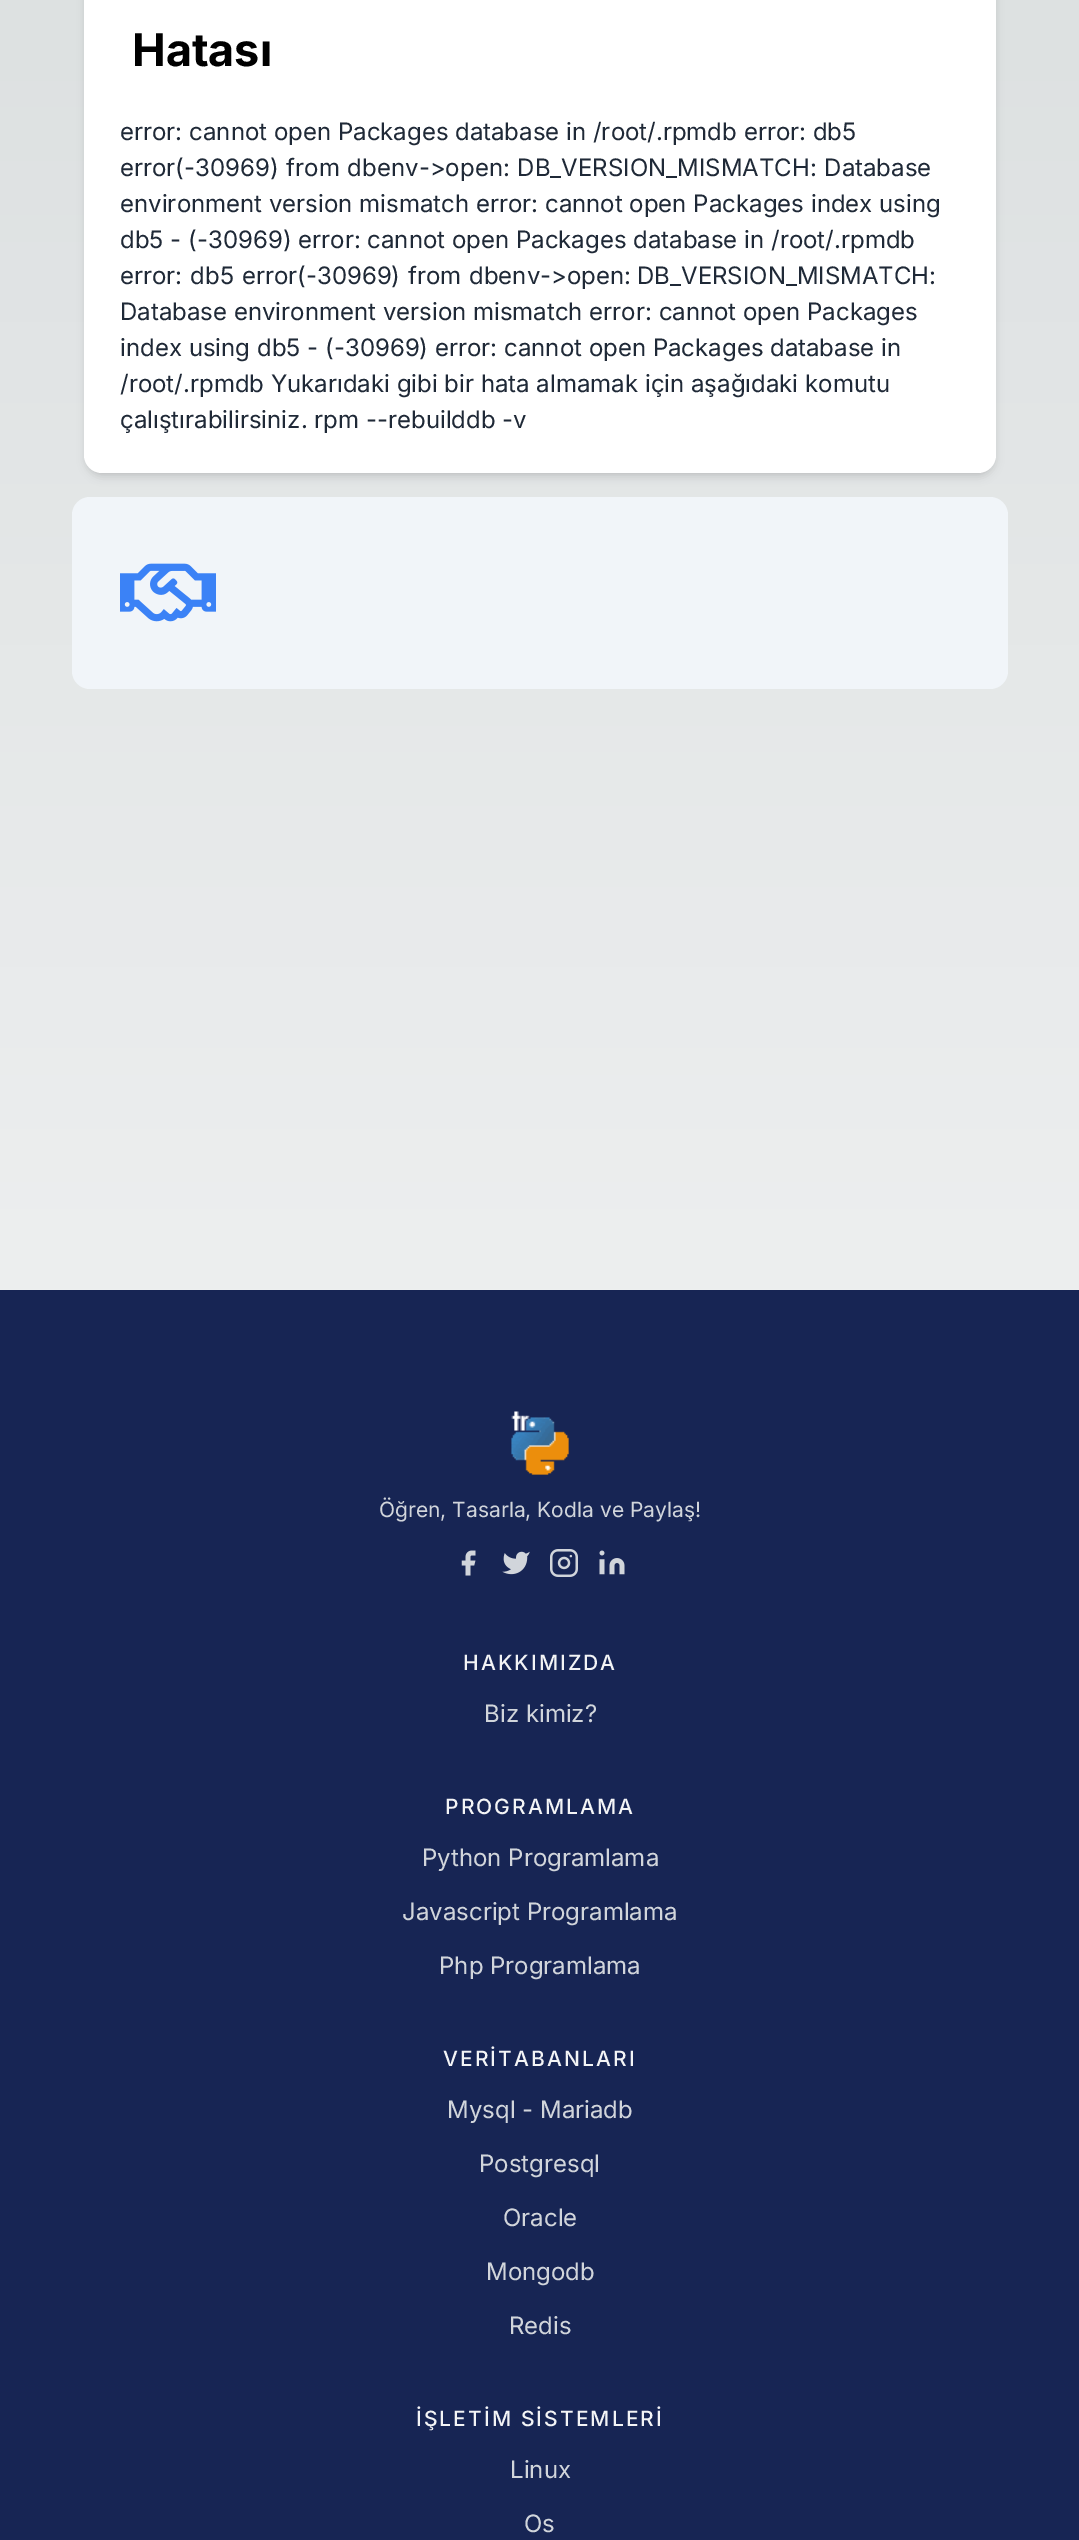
%!PS-Adobe-3.0
%%BoundingBox: 0 0 1079 2540
%%LanguageLevel: 3
%%Pages: 1
%%EndComments
%%BeginProlog
/setink { 3 { 255 div 3 1 roll } repeat setrgbcolor } def
/usefont { [ exch dup neg 0 0 3 -1 roll 0 0 ] selectfont } def
/drawtext { setink usefont moveto show } def
/fillbox { setink rectfill } def
/setalpha { dup .setfillconstantalpha .setstrokeconstantalpha } def
/rrect { 5 dict begin { /r /h /w /y /x } { exch def } forall
  x r add y moveto x w add y 2 copy h add r arct x w add y h add x 1 index r arct
  x y h add x y r arct x y 2 copy exch w add exch r arct closepath end } def
/softshadow { 12 dict begin { /a /b /q /h /w /y /x } { exch def } forall gsave /was 0 def
  9 -2 -9 { dup b mul 4 div /e exch def 1 sub .425 mul 2.718 exch exp 1 add a .99 .min exch div /now exch def
    1 1 now sub 1 was sub div sub setalpha /was now def
    w h .min e 2 mul add 0 gt { x e sub y e sub w e 2 mul add h e 2 mul add
      q e add b .6 mul add w h .min 2 div e add .min 0 .max rrect fill } if } for grestore end } def
/drawimage { 5 dict begin { /h /w /y /x /name } { exch def } forall
  gsave x y translate w h scale
  w h 8 [w 0 0 h 0 0] name (r) file false 3 colorimage grestore end } def
%%EndProlog
%%BeginSetup
<< /PageSize [1079 2540] /PageUsesTransparency true >> setpagedevice
%%EndSetup
%%Page: 1 1
0 .pushpdf14devicefilter
0 2540 translate 1 -1 scale
4 setmiterlimit
0 0 1079 2540 255 255 255 fillbox
gsave 0 0 moveto 1079 0 lineto 1079 1290 lineto 0 1290 lineto closepath clip newpath
<< /ShadingType 2 /ColorSpace /DeviceRGB /Coords [540 -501 540 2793] /Extend [true true] /Function << /FunctionType 2 /Domain [0 1] /C0 [0.843 0.859 0.863] /C1 [1 1 1] /N 1 >> >> shfill grestore
0 0 0 setink
87 -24 906 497 15 3 0.1 softshadow
86 -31 909 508 17 4.5 0.1 softshadow
255 255 255 setink
84 -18 912 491 18 rrect fill
(Hatası) 132 66 /Inter-Bold 45 0 0 0 drawtext
(error: cannot open Packages database in /root/.rpmdb error: db5) 120 140 /Inter-Regular 24 31 41 55 drawtext
120 176 moveto 1 0 32 (error\(-30969\) from dbenv->open: DB_VERSION_MISMATCH: Database) widthshow
(environment version mismatch error: cannot open Packages index using) 120 212 /Inter-Regular 24 31 41 55 drawtext
(db5 - \(-30969\) error: cannot open Packages database in /root/.rpmdb) 120 248 /Inter-Regular 24 31 41 55 drawtext
120 284 moveto 1 0 32 (error: db5 error\(-30969\) from dbenv->open:) widthshow
637 284 moveto 1 0 32 (DB_VERSION_MISMATCH:) widthshow
(Database environment version mismatch error: cannot open Packages) 120 320 /Inter-Regular 24 31 41 55 drawtext
(index using db5 - \(-30969\) error: cannot open Packages database in) 120 356 /Inter-Regular 24 31 41 55 drawtext
(/root/.rpmdb Yukarıdaki gibi bir hata almamak için aşağıdaki komutu) 120 392 /Inter-Regular 24 31 41 55 drawtext
(çalıştırabilirsiniz. rpm --rebuilddb -v) 120 428 /Inter-Regular 24 31 41 55 drawtext
241 245 249 setink
72 497 936 192 18 rrect fill
(assets/img1.rgb) 120 563 96 59 drawimage
0 1290 1079 1250 23 37 84 fillbox
(assets/img2.rgb) 511 1411 58 64 drawimage
(Öğren, Tasarla, Kodla ve Paylaş!) 379 1517 /Inter-Regular 21 209 213 219 drawtext
(assets/img3.rgb) 461 1550 15 26 drawimage
(assets/img4.rgb) 502 1551 28 24 drawimage
(assets/img5.rgb) 550 1549 28 28 drawimage
(assets/img6.rgb) 599 1550 26 25 drawimage
/Inter-Medium 21 usefont
243 244 246 setink
463 1670 moveto 2.1 0 (HAKKIMIZDA) ashow
(Biz kimiz?) 484 1722 /Inter-Regular 24 209 213 219 drawtext
/Inter-Medium 21 usefont
243 244 246 setink
445 1814 moveto 2.1 0 (PROGRAMLAMA) ashow
(Python Programlama) 422 1866 /Inter-Regular 24 209 213 219 drawtext
(Javascript Programlama) 402 1920 /Inter-Regular 24 209 213 219 drawtext
(Php Programlama) 439 1974 /Inter-Regular 24 209 213 219 drawtext
/Inter-Medium 21 usefont
243 244 246 setink
443 2066 moveto 2.1 0 (VERİTABANLARI) ashow
(Mysql - Mariadb) 447 2118 /Inter-Regular 24 209 213 219 drawtext
(Postgresql) 479 2172 /Inter-Regular 24 209 213 219 drawtext
(Oracle) 503 2226 /Inter-Regular 24 209 213 219 drawtext
(Mongodb) 486 2280 /Inter-Regular 24 209 213 219 drawtext
(Redis) 509 2334 /Inter-Regular 24 209 213 219 drawtext
/Inter-Medium 21 usefont
243 244 246 setink
416 2426 moveto 2.1 0 (İŞLETİM SİSTEMLERİ) ashow
(Linux) 510 2478 /Inter-Regular 24 209 213 219 drawtext
(Os) 524 2532 /Inter-Regular 24 209 213 219 drawtext
.poppdf14devicefilter showpage
%%EOF
